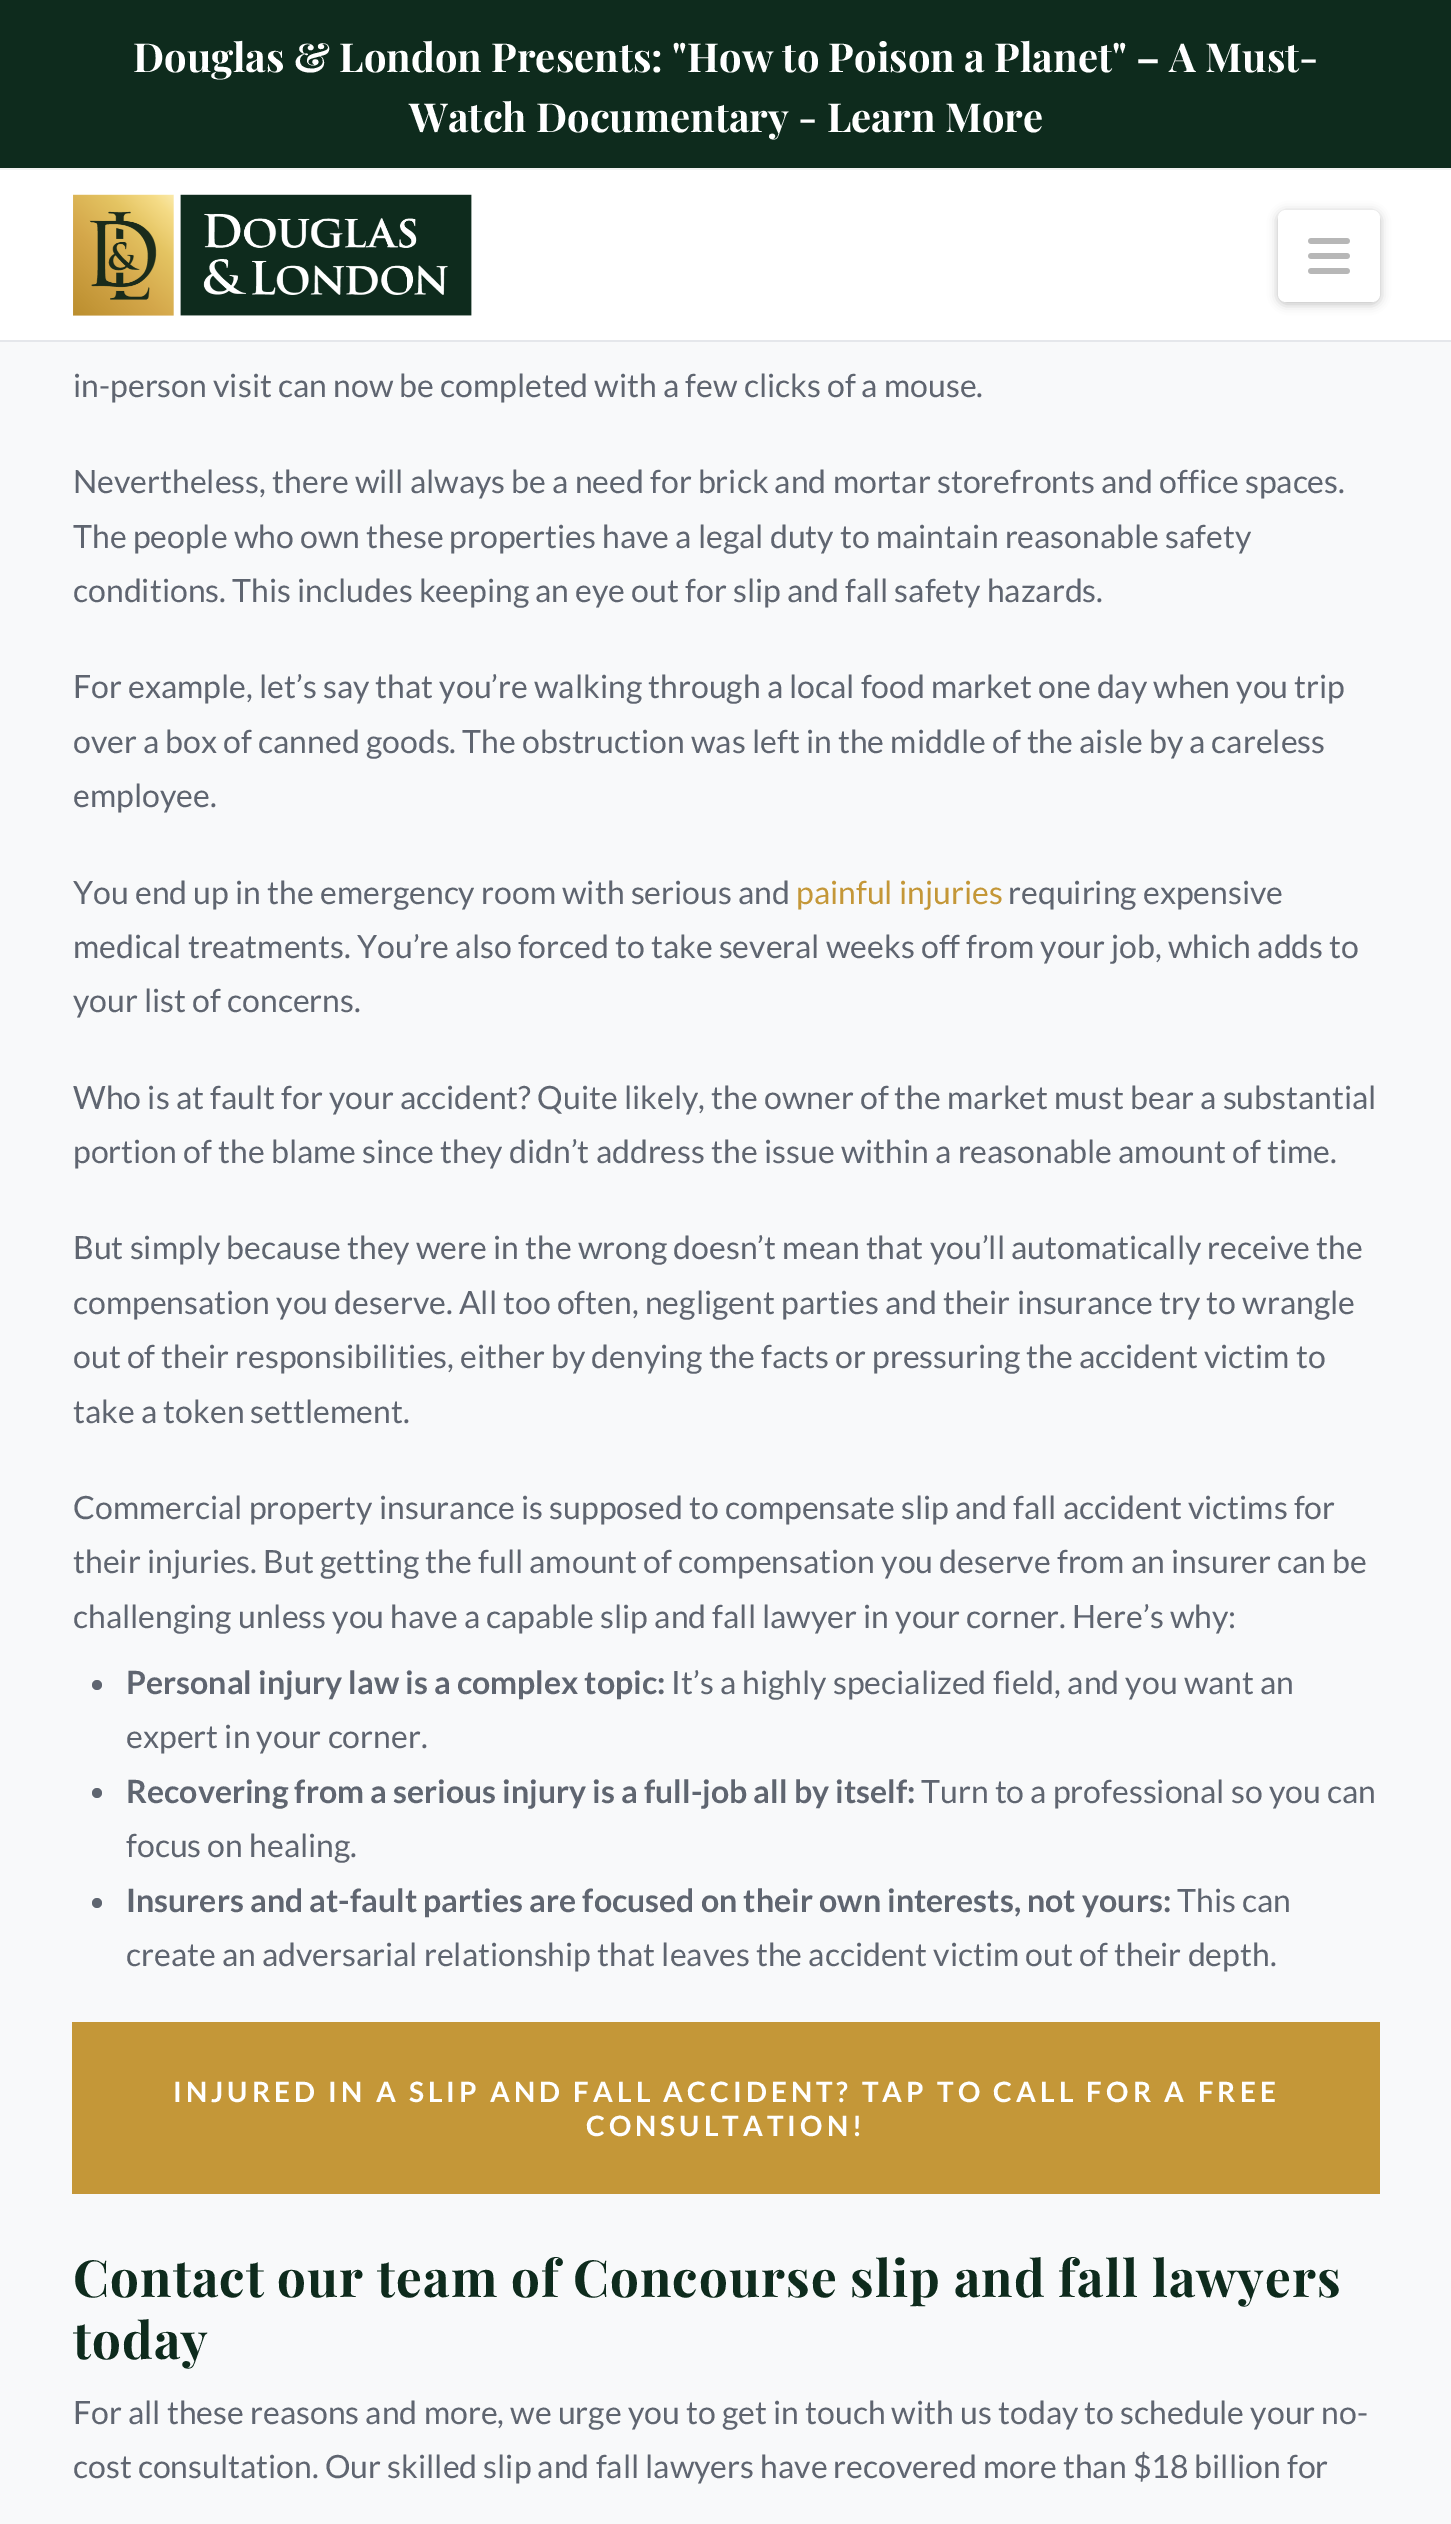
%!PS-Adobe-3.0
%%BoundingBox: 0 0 1451 2524
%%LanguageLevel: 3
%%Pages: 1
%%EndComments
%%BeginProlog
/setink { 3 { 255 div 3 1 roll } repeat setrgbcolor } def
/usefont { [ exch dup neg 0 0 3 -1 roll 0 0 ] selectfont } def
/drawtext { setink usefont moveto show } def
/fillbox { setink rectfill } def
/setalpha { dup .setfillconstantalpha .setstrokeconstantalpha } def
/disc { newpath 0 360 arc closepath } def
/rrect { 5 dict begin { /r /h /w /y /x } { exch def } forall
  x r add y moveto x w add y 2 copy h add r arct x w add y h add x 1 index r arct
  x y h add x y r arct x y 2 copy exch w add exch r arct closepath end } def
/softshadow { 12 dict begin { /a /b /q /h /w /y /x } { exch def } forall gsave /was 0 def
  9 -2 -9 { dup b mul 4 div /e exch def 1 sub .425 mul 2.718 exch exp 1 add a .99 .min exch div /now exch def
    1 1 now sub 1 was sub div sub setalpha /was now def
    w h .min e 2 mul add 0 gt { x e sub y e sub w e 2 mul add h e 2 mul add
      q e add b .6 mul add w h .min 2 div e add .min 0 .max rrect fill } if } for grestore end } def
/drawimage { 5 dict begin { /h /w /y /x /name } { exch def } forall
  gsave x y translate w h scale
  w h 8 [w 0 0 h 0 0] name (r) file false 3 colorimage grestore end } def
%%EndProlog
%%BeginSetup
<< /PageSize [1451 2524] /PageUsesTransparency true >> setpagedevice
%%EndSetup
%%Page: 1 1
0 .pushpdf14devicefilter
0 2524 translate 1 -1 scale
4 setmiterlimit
0 0 1451 2524 248 249 250 fillbox
0 0 1451 168 14 43 29 fillbox
0 168 1451 2 242 242 242 fillbox
(Douglas & London Presents: "How to Poison a Planet" – A Must-) 133 72 /PlayfairDisplay-Bold 40 255 255 255 drawtext
(Watch Documentary - Learn More) 409 132 /PlayfairDisplay-Bold 40 255 255 255 drawtext
0 170 1451 170 255 255 255 fillbox
0 340 1451 2 229 231 235 fillbox
(assets/img1.rgb) 73 194 399 122 drawimage
0 0 0 setink
1278 212 102 92 8 5 0.25 softshadow
255 255 255 setink
1278 210 102 92 8 rrect fill
(assets/img2.rgb) 1308 238 42 36 drawimage
(in-person visit can now be completed with a few clicks of a mouse.) 73 397 /Lato-Regular 32 95 101 112 drawtext
(Nevertheless, there will always be a need for brick and mortar storefronts and office spaces.) 73 493 /Lato-Regular 32 95 101 112 drawtext
(The people who own these properties have a legal duty to maintain reasonable safety) 73 548 /Lato-Regular 32 95 101 112 drawtext
(conditions. This includes keeping an eye out for slip and fall safety hazards.) 73 602 /Lato-Regular 32 95 101 112 drawtext
(For example, let’s say that you’re walking through a local food market one day when you trip) 73 698 /Lato-Regular 32 95 101 112 drawtext
(over a box of canned goods. The obstruction was left in the middle of the aisle by a careless) 73 753 /Lato-Regular 32 95 101 112 drawtext
(employee.) 73 807 /Lato-Regular 32 95 101 112 drawtext
(You end up in the emergency room with serious and) 73 904 /Lato-Regular 32 95 101 112 drawtext
(painful injuries) 796 904 /Lato-Regular 32 196 151 56 drawtext
(requiring expensive) 1008 904 /Lato-Regular 32 95 101 112 drawtext
(medical treatments. You’re also forced to take several weeks off from your job, which adds to) 73 958 /Lato-Regular 32 95 101 112 drawtext
(your list of concerns.) 73 1012 /Lato-Regular 32 95 101 112 drawtext
(Who is at fault for your accident? Quite likely, the owner of the market must bear a substantial) 73 1109 /Lato-Regular 32 95 101 112 drawtext
(portion of the blame since they didn’t address the issue within a reasonable amount of time.) 73 1163 /Lato-Regular 32 95 101 112 drawtext
(But simply because they were in the wrong doesn’t mean that you’ll automatically receive the) 73 1259 /Lato-Regular 32 95 101 112 drawtext
(compensation you deserve. All too often, negligent parties and their insurance try to wrangle) 73 1314 /Lato-Regular 32 95 101 112 drawtext
(out of their responsibilities, either by denying the facts or pressuring the accident victim to) 73 1368 /Lato-Regular 32 95 101 112 drawtext
(take a token settlement.) 73 1423 /Lato-Regular 32 95 101 112 drawtext
(Commercial property insurance is supposed to compensate slip and fall accident victims for) 73 1519 /Lato-Regular 32 95 101 112 drawtext
(their injuries. But getting the full amount of compensation you deserve from an insurer can be) 73 1573 /Lato-Regular 32 95 101 112 drawtext
(challenging unless you have a capable slip and fall lawyer in your corner. Here’s why:) 73 1628 /Lato-Regular 32 95 101 112 drawtext
97 1685 5 disc fill
(Personal injury law is a complex topic:) 126 1694 /Lato-Bold 32 95 101 112 drawtext
(It’s a highly specialized field, and you want an) 671 1694 /Lato-Regular 32 95 101 112 drawtext
(expert in your corner.) 126 1748 /Lato-Regular 32 95 101 112 drawtext
97 1793 5 disc fill
(Recovering from a serious injury is a full-job all by itself:) 126 1803 /Lato-Bold 32 95 101 112 drawtext
(Turn to a professional so you can) 921 1803 /Lato-Regular 32 95 101 112 drawtext
(focus on healing.) 126 1857 /Lato-Regular 32 95 101 112 drawtext
97 1903 5 disc fill
(Insurers and at-fault parties are focused on their own interests, not yours:) 126 1912 /Lato-Bold 32 95 101 112 drawtext
(This can) 1177 1912 /Lato-Regular 32 95 101 112 drawtext
(create an adversarial relationship that leaves the accident victim out of their depth.) 126 1966 /Lato-Regular 32 95 101 112 drawtext
72 2022 1308 172 196 151 56 fillbox
/Lato-Bold 28 usefont
255 255 255 setink
173 2102 moveto 4 0 (INJURED IN A SLIP AND FALL ACCIDENT? TAP TO CALL FOR A FREE) ashow
586 2136 moveto 4 0 (CONSULTATION!) ashow
/PlayfairDisplay-Bold 51.2 usefont
14 43 29 setink
73 2297 moveto 1.02 0 (Contact our team of Concourse slip and fall lawyers) ashow
73 2359 moveto 1.02 0 (today) ashow
(For all these reasons and more, we urge you to get in touch with us today to schedule your no-) 73 2424 /Lato-Regular 32 95 101 112 drawtext
(cost consultation. Our skilled slip and fall lawyers have recovered more than $18 billion for) 73 2478 /Lato-Regular 32 95 101 112 drawtext
.poppdf14devicefilter showpage
%%EOF
